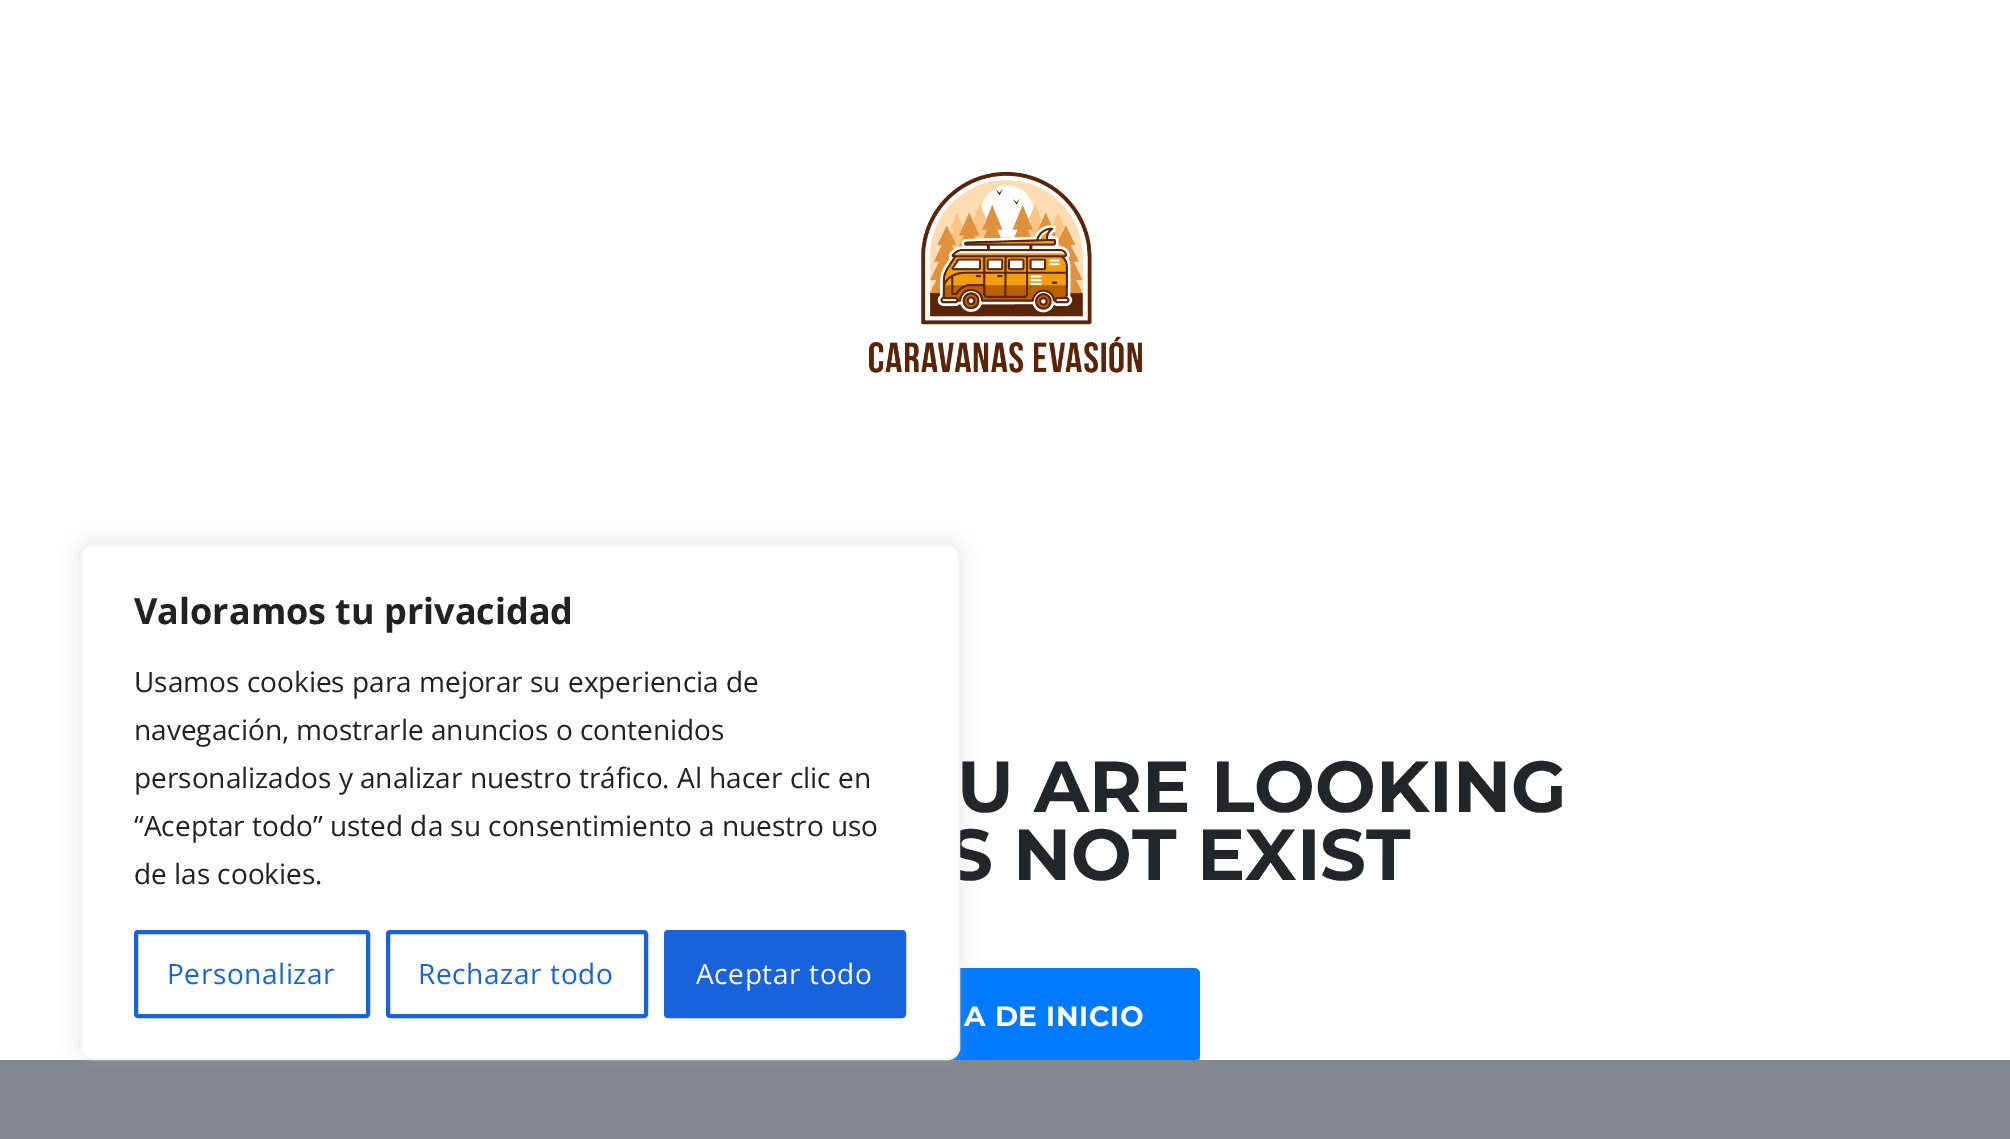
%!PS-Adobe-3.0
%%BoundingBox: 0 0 2010 1139
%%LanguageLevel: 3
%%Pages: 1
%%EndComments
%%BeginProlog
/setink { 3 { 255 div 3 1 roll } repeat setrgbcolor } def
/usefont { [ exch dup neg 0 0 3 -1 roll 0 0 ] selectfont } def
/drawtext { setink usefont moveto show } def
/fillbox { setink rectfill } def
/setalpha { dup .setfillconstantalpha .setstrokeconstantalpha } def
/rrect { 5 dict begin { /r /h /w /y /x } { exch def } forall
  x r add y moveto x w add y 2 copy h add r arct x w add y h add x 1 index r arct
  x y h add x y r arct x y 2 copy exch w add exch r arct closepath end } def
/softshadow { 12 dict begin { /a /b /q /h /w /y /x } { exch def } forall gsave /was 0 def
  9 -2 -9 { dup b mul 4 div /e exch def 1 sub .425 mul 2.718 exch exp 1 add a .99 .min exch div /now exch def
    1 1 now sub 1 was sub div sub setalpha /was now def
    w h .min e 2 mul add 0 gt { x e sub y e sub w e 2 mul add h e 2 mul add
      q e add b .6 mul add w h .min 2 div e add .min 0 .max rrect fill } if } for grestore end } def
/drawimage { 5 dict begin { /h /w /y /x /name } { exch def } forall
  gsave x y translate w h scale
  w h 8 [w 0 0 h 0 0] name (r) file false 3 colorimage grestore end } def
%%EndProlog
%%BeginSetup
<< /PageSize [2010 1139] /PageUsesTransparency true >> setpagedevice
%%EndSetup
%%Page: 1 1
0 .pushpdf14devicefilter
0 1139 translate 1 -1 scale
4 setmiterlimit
0 0 2010 1139 255 255 255 fillbox
64 155 255 setink
810 1054 moveto 810 1058 810 1063 815 1064 curveto 1195 1064 lineto 1200 1063 1200 1058 1200 1054 curveto 1200 1057 1197 1060 1194 1060 curveto 816 1060 lineto 813 1060 810 1057 810 1054 curveto closepath fill
0 122 255 setink
810 968 390 92 6 rrect fill
0 1060 2010 79 131 136 142 fillbox
172 171 171 setink
80 542 880 516 12 10 0.3 softshadow
(S NOT EXIST) 947 880 /Montserrat-Bold 72 35 38 40 drawtext
255 255 255 setink
81 545 878 514 11 rrect gsave fill grestore
244 244 244 setink
2 setlinewidth
stroke
(Valoramos tu privacidad) 134 624 /OpenSans-Bold 36 33 33 33 drawtext
(Usamos cookies para mejorar su experiencia de) 134 692 /OpenSans-Regular 28 33 33 33 drawtext
(navegación, mostrarle anuncios o contenidos) 134 740 /OpenSans-Regular 28 33 33 33 drawtext
(personalizados y analizar nuestro tráfico. Al hacer clic en) 134 788 /OpenSans-Regular 28 33 33 33 drawtext
(“Aceptar todo” usted da su consentimiento a nuestro uso) 134 836 /OpenSans-Regular 28 33 33 33 drawtext
(de las cookies.) 134 884 /OpenSans-Regular 28 33 33 33 drawtext
24 99 220 setink
4 setlinewidth
136 932 232 84 2 rrect stroke
167 984 moveto 0.6 0 (Personalizar) ashow
388 932 258 84 2 rrect stroke
418 984 moveto 0.6 0 (Rechazar todo) ashow
666 932 238 84 2 rrect gsave fill grestore
stroke
255 255 255 setink
696 984 moveto 0.6 0 (Aceptar todo) ashow
(assets/img1.rgb) 869 172 274 201 drawimage
(U ARE LOOKING) 957 812 /Montserrat-Bold 72 35 38 40 drawtext
/Montserrat-Bold 28 usefont
255 255 255 setink
964 1026 moveto 0.6 0 (A DE INICIO) ashow
.poppdf14devicefilter showpage
%%EOF
